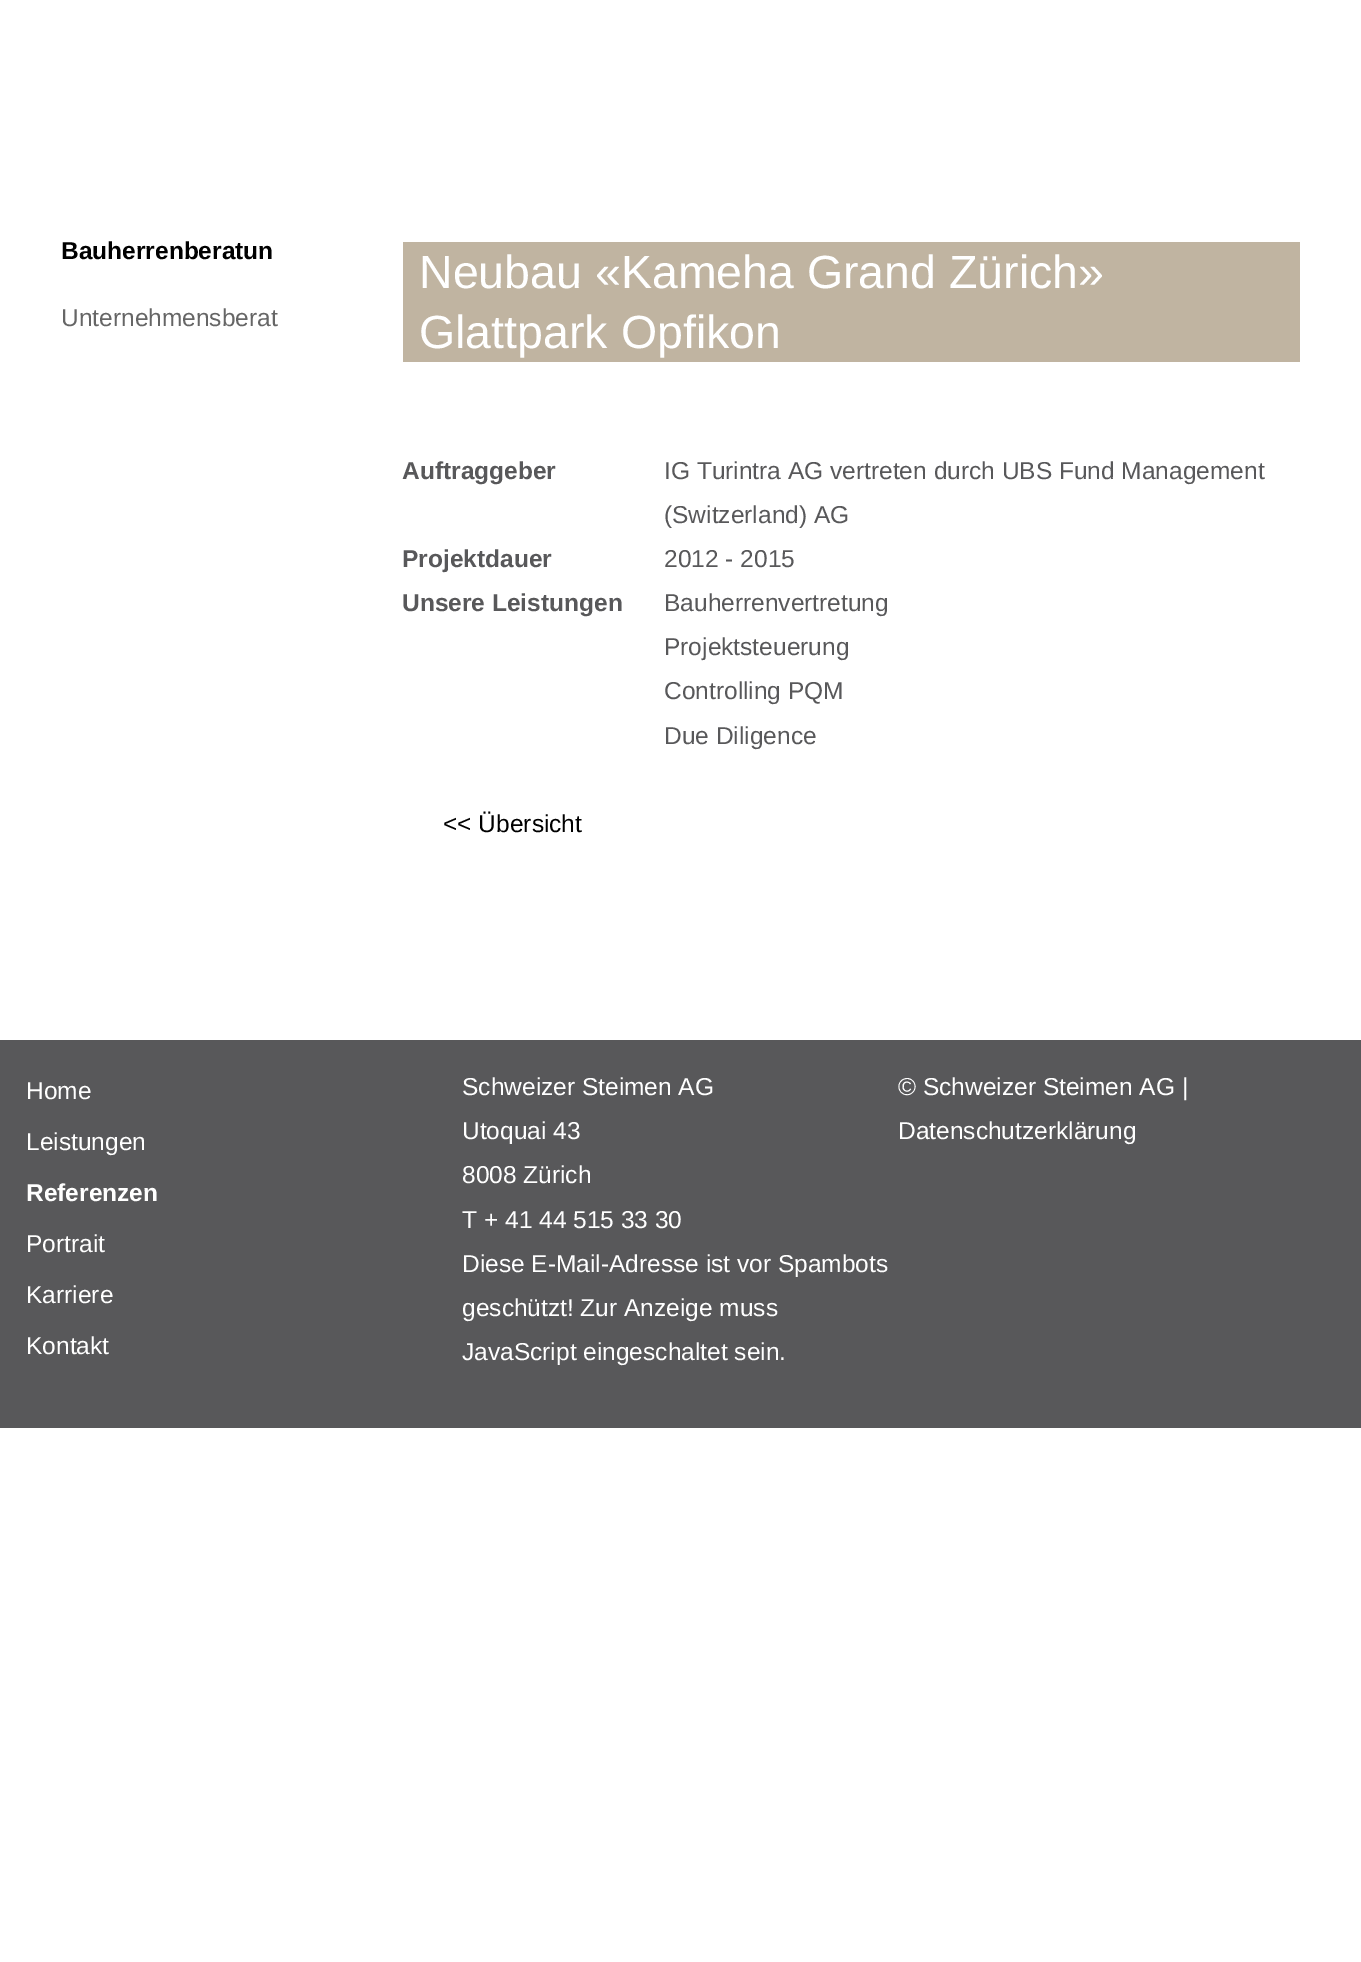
%!PS-Adobe-3.0
%%BoundingBox: 0 0 1361 1962
%%LanguageLevel: 3
%%Pages: 1
%%EndComments
%%BeginProlog
/setink { 3 { 255 div 3 1 roll } repeat setrgbcolor } def
/usefont { [ exch dup neg 0 0 3 -1 roll 0 0 ] selectfont } def
/drawtext { setink usefont moveto show } def
/fillbox { setink rectfill } def
%%EndProlog
%%BeginSetup
<< /PageSize [1361 1962] >> setpagedevice
%%EndSetup
%%Page: 1 1
0 1962 translate 1 -1 scale
4 setmiterlimit
0 0 1361 1962 255 255 255 fillbox
(Bauherrenberatun) 61 259 /LiberationSans-Bold 24.5 0 0 0 drawtext
(Unternehmensberat) 61 326 /LiberationSans-Regular 24.5 102 102 102 drawtext
403 242 897 120 192 180 161 fillbox
(Neubau «Kameha Grand Zürich») 419 288 /LiberationSans-Regular 46.5 255 255 255 drawtext
(Glattpark Opfikon) 419 348 /LiberationSans-Regular 46.5 255 255 255 drawtext
(Auftraggeber) 402 479 /LiberationSans-Bold 24.5 88 88 90 drawtext
(IG Turintra AG vertreten durch UBS Fund Management) 664 479 /LiberationSans-Regular 24.5 88 88 90 drawtext
(\(Switzerland\) AG) 664 523 /LiberationSans-Regular 24.5 88 88 90 drawtext
(Projektdauer) 402 567 /LiberationSans-Bold 24.5 88 88 90 drawtext
(2012 - 2015) 664 567 /LiberationSans-Regular 24.5 88 88 90 drawtext
(Unsere Leistungen) 402 611 /LiberationSans-Bold 24.5 88 88 90 drawtext
(Bauherrenvertretung) 664 611 /LiberationSans-Regular 24.5 88 88 90 drawtext
(Projektsteuerung) 664 655 /LiberationSans-Regular 24.5 88 88 90 drawtext
(Controlling PQM) 664 699 /LiberationSans-Regular 24.5 88 88 90 drawtext
(Due Diligence) 664 744 /LiberationSans-Regular 24.5 88 88 90 drawtext
(<< Übersicht) 443 832 /LiberationSans-Regular 24.5 0 0 0 drawtext
0 1040 1361 388 88 88 90 fillbox
(Home) 26 1099 /LiberationSans-Regular 24.5 255 255 255 drawtext
(Leistungen) 26 1150 /LiberationSans-Regular 24.5 255 255 255 drawtext
(Referenzen) 26 1201 /LiberationSans-Bold 24.5 255 255 255 drawtext
(Portrait) 26 1252 /LiberationSans-Regular 24.5 255 255 255 drawtext
(Karriere) 26 1303 /LiberationSans-Regular 24.5 255 255 255 drawtext
(Kontakt) 26 1354 /LiberationSans-Regular 24.5 255 255 255 drawtext
(Schweizer Steimen AG) 462 1095 /LiberationSans-Regular 24.5 255 255 255 drawtext
(Utoquai 43) 462 1139 /LiberationSans-Regular 24.5 255 255 255 drawtext
(8008 Zürich) 462 1183 /LiberationSans-Regular 24.5 255 255 255 drawtext
(T + 41 44 515 33 30) 462 1228 /LiberationSans-Regular 24.5 255 255 255 drawtext
(Diese E-Mail-Adresse ist vor Spambots) 462 1272 /LiberationSans-Regular 24.5 255 255 255 drawtext
(geschützt! Zur Anzeige muss) 462 1316 /LiberationSans-Regular 24.5 255 255 255 drawtext
(JavaScript eingeschaltet sein.) 462 1360 /LiberationSans-Regular 24.5 255 255 255 drawtext
(© Schweizer Steimen AG |) 898 1095 /LiberationSans-Regular 24.5 255 255 255 drawtext
(Datenschutzerklärung) 898 1139 /LiberationSans-Regular 24.5 255 255 255 drawtext
showpage
%%EOF
